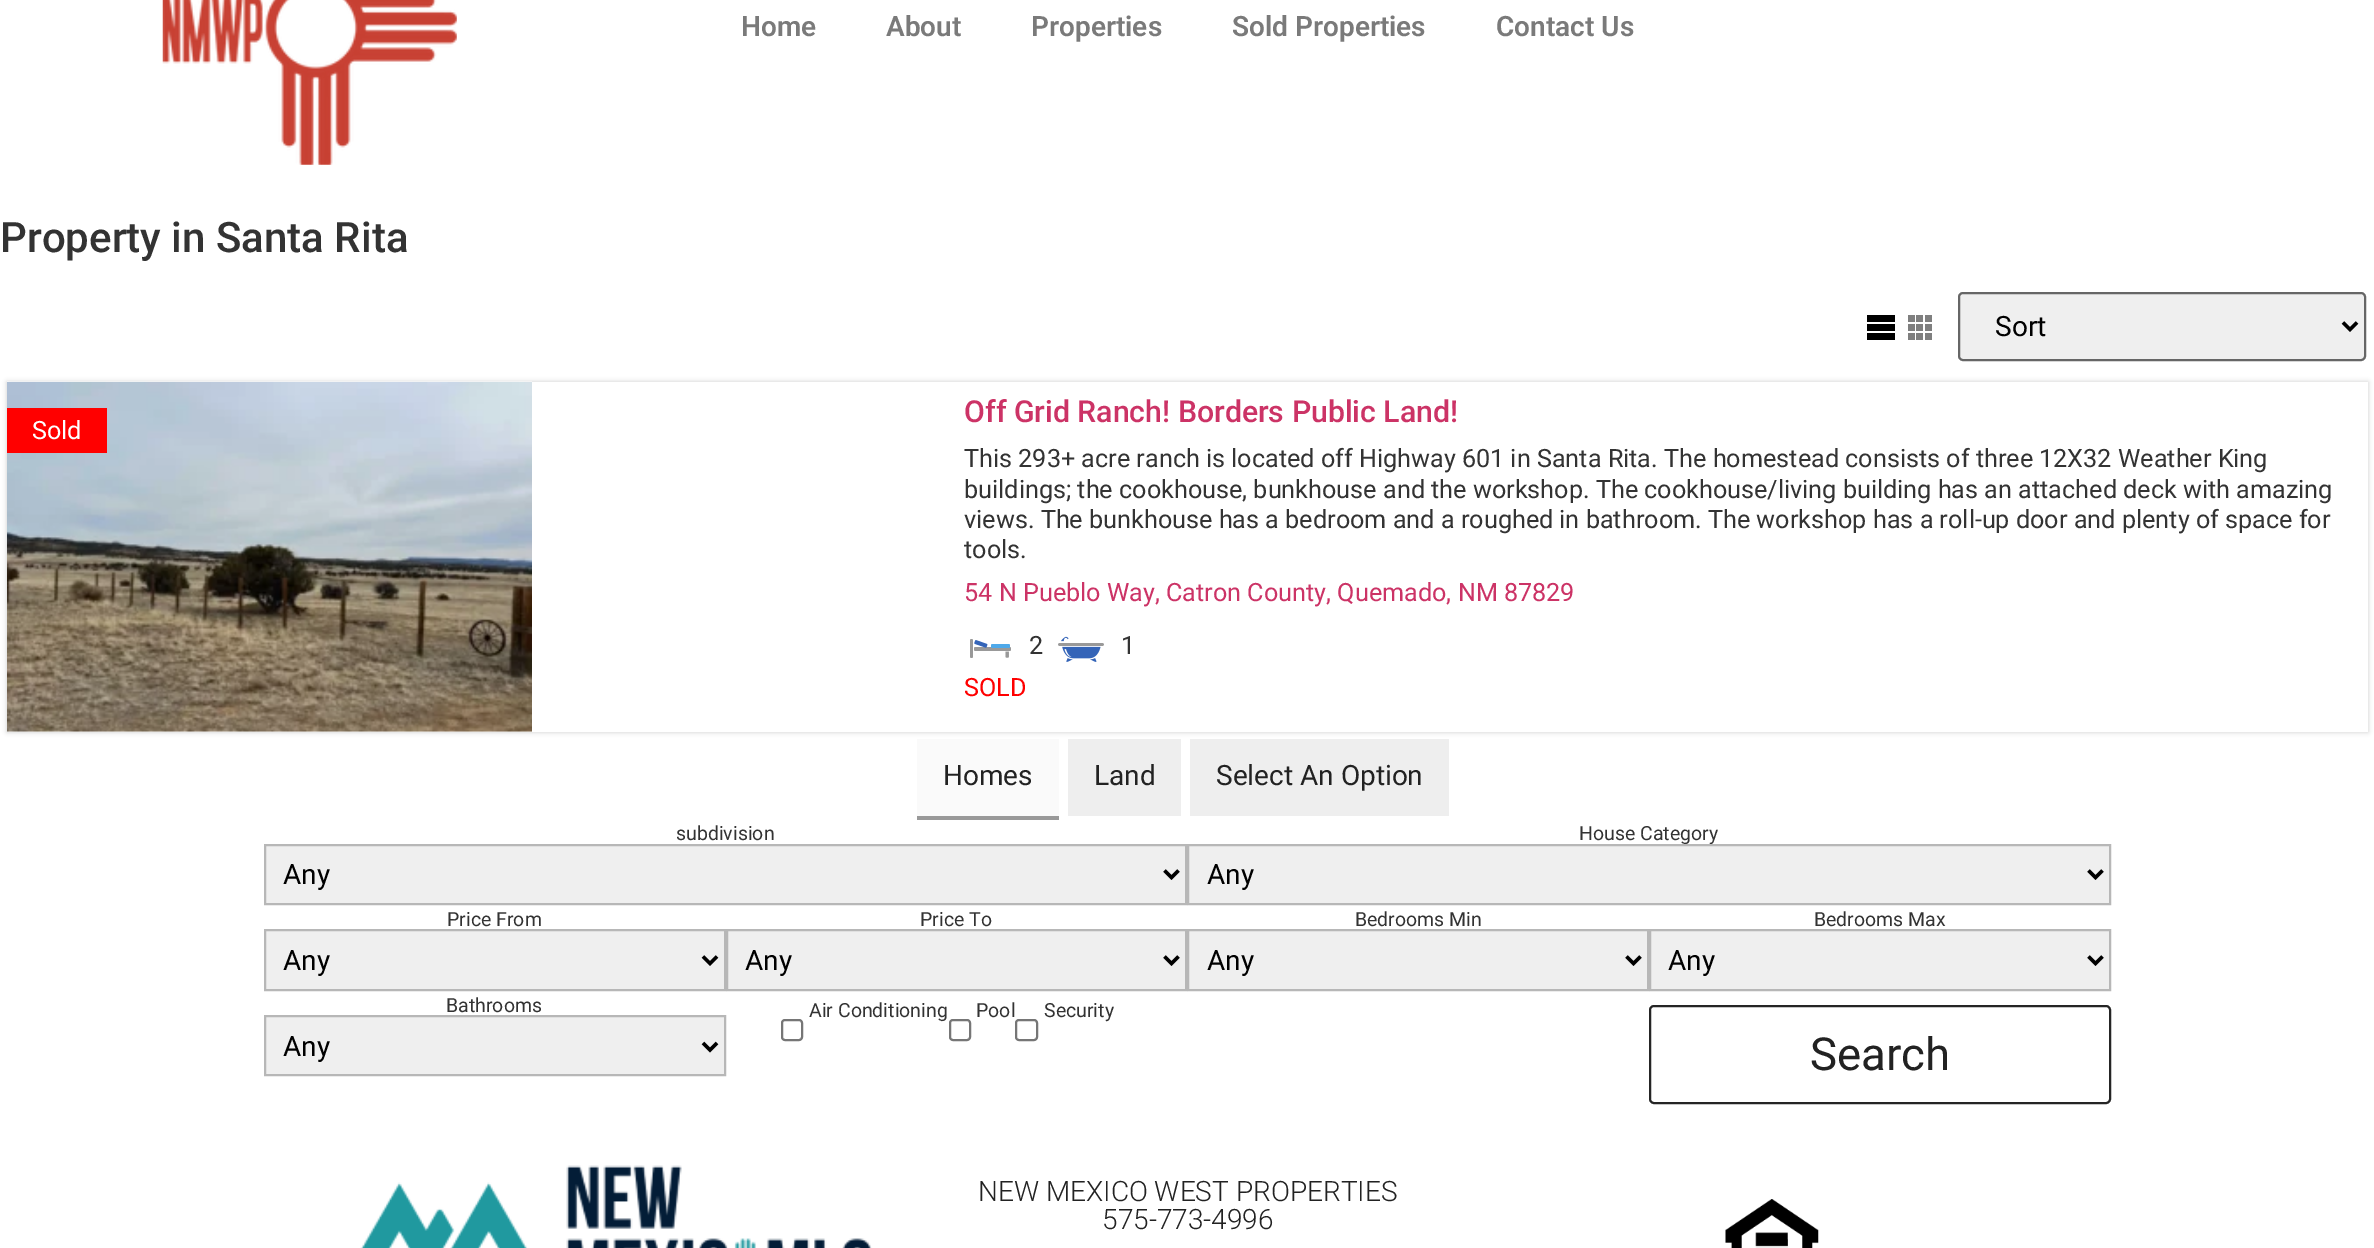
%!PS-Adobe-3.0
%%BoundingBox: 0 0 2374 1248
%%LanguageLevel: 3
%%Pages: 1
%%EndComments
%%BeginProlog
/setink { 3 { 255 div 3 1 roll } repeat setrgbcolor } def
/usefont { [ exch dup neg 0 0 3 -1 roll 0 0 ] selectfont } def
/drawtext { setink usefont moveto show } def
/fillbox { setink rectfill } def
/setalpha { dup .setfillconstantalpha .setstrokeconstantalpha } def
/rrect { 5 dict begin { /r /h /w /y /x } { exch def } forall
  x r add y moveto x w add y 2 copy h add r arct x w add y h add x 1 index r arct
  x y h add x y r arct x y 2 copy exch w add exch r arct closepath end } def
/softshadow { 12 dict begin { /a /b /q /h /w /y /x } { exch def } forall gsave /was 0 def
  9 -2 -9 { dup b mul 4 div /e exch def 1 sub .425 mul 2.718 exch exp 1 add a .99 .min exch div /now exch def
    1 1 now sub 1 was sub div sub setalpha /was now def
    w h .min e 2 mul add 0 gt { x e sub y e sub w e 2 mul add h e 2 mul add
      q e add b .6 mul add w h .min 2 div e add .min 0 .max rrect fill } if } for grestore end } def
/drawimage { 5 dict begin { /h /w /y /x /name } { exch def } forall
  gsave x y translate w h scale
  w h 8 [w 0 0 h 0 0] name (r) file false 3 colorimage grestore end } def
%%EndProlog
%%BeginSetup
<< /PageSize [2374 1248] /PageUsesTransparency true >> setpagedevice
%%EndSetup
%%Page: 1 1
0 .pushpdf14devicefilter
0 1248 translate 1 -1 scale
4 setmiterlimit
0 0 2374 1248 255 255 255 fillbox
(assets/img1.rgb) 162 0 295 165 drawimage
(Home) 741 36 /Roboto-SemiBold 28 122 122 122 drawtext
(About) 886 36 /Roboto-SemiBold 28 122 122 122 drawtext
(Properties) 1031 36 /Roboto-SemiBold 28 122 122 122 drawtext
(Sold Properties) 1232 36 /Roboto-SemiBold 28 122 122 122 drawtext
(Contact Us) 1496 36 /Roboto-SemiBold 28 122 122 122 drawtext
(Property in Santa Rita) 0 252 /Roboto-Medium 42 51 51 51 drawtext
(assets/img2.rgb) 1867 315 28 25 drawimage
(assets/img3.rgb) 1908 315 24 25 drawimage
239 239 239 setink
1959 293 406 67 4 rrect gsave fill grestore
102 102 102 setink
2 setlinewidth
stroke
0 0 0 setink
3.5 setlinewidth
2343 322.5 moveto 2350 329.5 lineto 2357 322.5 lineto stroke
(Sort) 1995 336 /Roboto-Regular 28 0 0 0 drawtext
917 739 142 77 250 250 250 fillbox
1068 739 113 77 238 238 238 fillbox
1190 739 259 77 238 238 238 fillbox
204 204 204 setink
7 382 2361 350 0 2.5 1 softshadow
7 382 2361 350 255 255 255 fillbox
(assets/img4.rgb) 7 381 525 351 drawimage
7 408 100 45 255 0 0 fillbox
(Sold) 32 439 /Roboto-Regular 25.2 255 255 255 drawtext
(Off Grid Ranch! Borders Public Land!) 964 422 /Roboto-Medium 30.25 204 51 102 drawtext
(This 293+ acre ranch is located off Highway 601 in Santa Rita. The homestead consists of three 12X32 Weather King) 964 467 /Roboto-Regular 25.2 51 51 51 drawtext
(buildings; the cookhouse, bunkhouse and the workshop. The cookhouse/living building has an attached deck with amazing) 964 498 /Roboto-Regular 25.2 51 51 51 drawtext
(views. The bunkhouse has a bedroom and a roughed in bathroom. The workshop has a roll-up door and plenty of space for) 964 528 /Roboto-Regular 25.2 51 51 51 drawtext
(tools.) 964 558 /Roboto-Regular 25.2 51 51 51 drawtext
(54 N Pueblo Way, Catron County, Quemado, NM 87829) 964 601 /Roboto-Regular 25.2 204 51 102 drawtext
(assets/img5.rgb) 970 639 41 19 drawimage
(2) 1029 654 /Roboto-Regular 25.2 51 51 51 drawtext
(assets/img6.rgb) 1058 636 46 26 drawimage
(1) 1121 654 /Roboto-Regular 25.2 51 51 51 drawtext
(SOLD) 964 696 /Roboto-Regular 25.2 255 0 0 drawtext
917 816 142 4 153 153 153 fillbox
(Homes) 943 785 /Roboto-Regular 28 34 34 34 drawtext
(Land) 1094 785 /Roboto-Regular 28 34 34 34 drawtext
(Select An Option) 1216 785 /Roboto-Regular 28 34 34 34 drawtext
(subdivision) 676 840 /Roboto-Regular 19.5 51 51 51 drawtext
239 239 239 setink
265 845 moveto 1186 845 lineto 1186 904 lineto 265 904 lineto closepath gsave fill grestore
183 183 183 setink
2 setlinewidth
stroke
0 0 0 setink
3.5 setlinewidth
1164.5 870.5 moveto 1171.5 877.5 lineto 1178.5 870.5 lineto stroke
(Any) 283 884 /Roboto-Regular 28 0 0 0 drawtext
(House Category) 1579 840 /Roboto-Regular 19.5 51 51 51 drawtext
239 239 239 setink
1188 845 moveto 2110 845 lineto 2110 904 lineto 1188 904 lineto closepath gsave fill grestore
183 183 183 setink
2 setlinewidth
stroke
0 0 0 setink
3.5 setlinewidth
2088.5 870.5 moveto 2095.5 877.5 lineto 2102.5 870.5 lineto stroke
(Any) 1207 884 /Roboto-Regular 28 0 0 0 drawtext
(Price From) 447 926 /Roboto-Regular 19.5 51 51 51 drawtext
239 239 239 setink
265 930 moveto 725 930 lineto 725 990 lineto 265 990 lineto closepath gsave fill grestore
183 183 183 setink
2 setlinewidth
stroke
0 0 0 setink
3.5 setlinewidth
703 956.5 moveto 710 963.5 lineto 717 956.5 lineto stroke
(Any) 283 970 /Roboto-Regular 28 0 0 0 drawtext
(Price To) 920 926 /Roboto-Regular 19.5 51 51 51 drawtext
239 239 239 setink
727 930 moveto 1186 930 lineto 1186 990 lineto 727 990 lineto closepath gsave fill grestore
183 183 183 setink
2 setlinewidth
stroke
0 0 0 setink
3.5 setlinewidth
1164.5 956.5 moveto 1171.5 963.5 lineto 1178.5 956.5 lineto stroke
(Any) 745 970 /Roboto-Regular 28 0 0 0 drawtext
(Bedrooms Min) 1355 926 /Roboto-Regular 19.5 51 51 51 drawtext
239 239 239 setink
1188 930 moveto 1648 930 lineto 1648 990 lineto 1188 990 lineto closepath gsave fill grestore
183 183 183 setink
2 setlinewidth
stroke
0 0 0 setink
3.5 setlinewidth
1626.5 956.5 moveto 1633.5 963.5 lineto 1640.5 956.5 lineto stroke
(Any) 1207 970 /Roboto-Regular 28 0 0 0 drawtext
(Bedrooms Max) 1814 926 /Roboto-Regular 19.5 51 51 51 drawtext
239 239 239 setink
1650 930 moveto 2110 930 lineto 2110 990 lineto 1650 990 lineto closepath gsave fill grestore
183 183 183 setink
2 setlinewidth
stroke
0 0 0 setink
3.5 setlinewidth
2088.5 956.5 moveto 2095.5 963.5 lineto 2102.5 956.5 lineto stroke
(Any) 1668 970 /Roboto-Regular 28 0 0 0 drawtext
(Bathrooms) 446 1012 /Roboto-Regular 19.5 51 51 51 drawtext
239 239 239 setink
265 1016 moveto 725 1016 lineto 725 1075 lineto 265 1075 lineto closepath gsave fill grestore
183 183 183 setink
2 setlinewidth
stroke
0 0 0 setink
3.5 setlinewidth
703 1043 moveto 710 1050 lineto 717 1043 lineto stroke
(Any) 283 1056 /Roboto-Regular 28 0 0 0 drawtext
(Air Conditioning) 809 1017 /Roboto-Regular 19.5 51 51 51 drawtext
118 118 118 setink
2 setlinewidth
782 1020 20 20 3 rrect stroke
(Pool) 976 1017 /Roboto-Regular 19.5 51 51 51 drawtext
118 118 118 setink
950 1020 20 20 3 rrect stroke
(Security) 1044 1017 /Roboto-Regular 19.5 51 51 51 drawtext
118 118 118 setink
1016 1020 21 20 3 rrect stroke
37 37 37 setink
1650 1006 460 97 4 rrect stroke
(Search) 1810 1070 /Roboto-Regular 45.5 34 34 34 drawtext
(assets/img7.rgb) 360 1165 512 83 drawimage
(NEW MEXICO WEST PROPERTIES) 978 1201 /Roboto-Light 28 34 34 34 drawtext
(575-773-4996) 1102 1229 /Roboto-Light 28 34 34 34 drawtext
(assets/img8.rgb) 1725 1199 94 49 drawimage
.poppdf14devicefilter showpage
%%EOF
